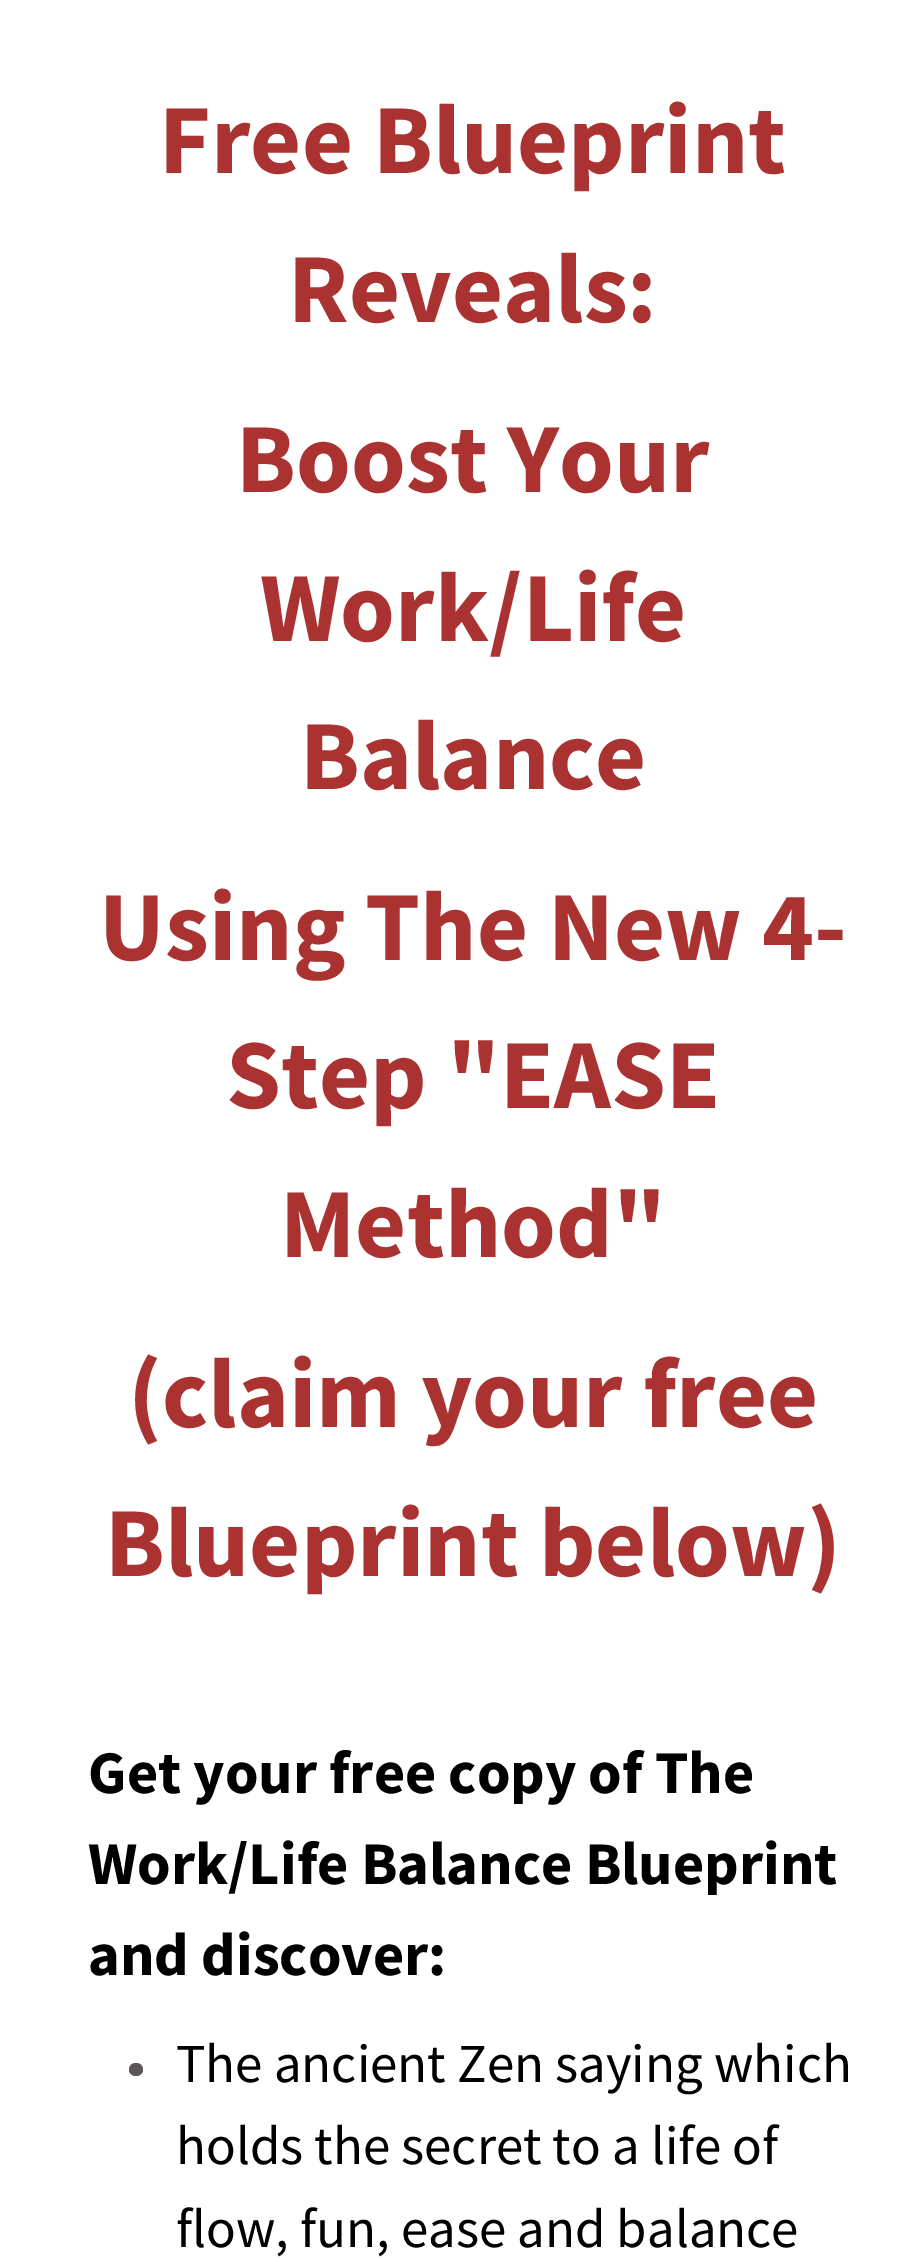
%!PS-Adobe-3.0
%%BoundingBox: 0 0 900 2258
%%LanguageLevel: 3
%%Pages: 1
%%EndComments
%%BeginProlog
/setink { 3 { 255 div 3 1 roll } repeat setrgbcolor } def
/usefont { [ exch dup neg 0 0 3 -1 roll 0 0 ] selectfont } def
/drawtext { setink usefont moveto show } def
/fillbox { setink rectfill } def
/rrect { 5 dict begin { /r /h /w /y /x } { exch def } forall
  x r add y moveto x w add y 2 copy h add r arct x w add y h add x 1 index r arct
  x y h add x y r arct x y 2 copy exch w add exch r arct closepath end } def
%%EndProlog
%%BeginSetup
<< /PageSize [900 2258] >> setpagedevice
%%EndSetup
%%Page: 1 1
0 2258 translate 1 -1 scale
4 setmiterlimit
0 0 900 2258 255 255 255 fillbox
(Free Blueprint) 159 173 /SourceSansPro-Bold 99 170 50 48 drawtext
(Reveals:) 288 322 /SourceSansPro-Bold 99 170 50 48 drawtext
(Boost Your) 236 492 /SourceSansPro-Bold 99 170 50 48 drawtext
(Work/Life) 260 641 /SourceSansPro-Bold 99 170 50 48 drawtext
(Balance) 300 789 /SourceSansPro-Bold 99 170 50 48 drawtext
(Using The New 4-) 99 960 /SourceSansPro-Bold 99 170 50 48 drawtext
(Step "EASE) 226 1108 /SourceSansPro-Bold 99 170 50 48 drawtext
(Method") 280 1257 /SourceSansPro-Bold 99 170 50 48 drawtext
(\(claim your free) 128 1427 /SourceSansPro-Bold 99 170 50 48 drawtext
(Blueprint below\)) 105 1576 /SourceSansPro-Bold 99 170 50 48 drawtext
(Get your free copy of The) 88 1793 /SourceSansPro-Bold 60.5 0 0 0 drawtext
(Work/Life Balance Blueprint) 88 1884 /SourceSansPro-Bold 60.5 0 0 0 drawtext
(and discover:) 88 1975 /SourceSansPro-Bold 60.5 0 0 0 drawtext
92 86 88 setink
129 2063 14 13 6.5 rrect fill
(The ancient Zen saying which) 176 2082 /SourceSansPro-Regular 55 0 0 0 drawtext
(holds the secret to a life of) 176 2164 /SourceSansPro-Regular 55 0 0 0 drawtext
(flow, fun, ease and balance) 176 2247 /SourceSansPro-Regular 55 0 0 0 drawtext
showpage
%%EOF
